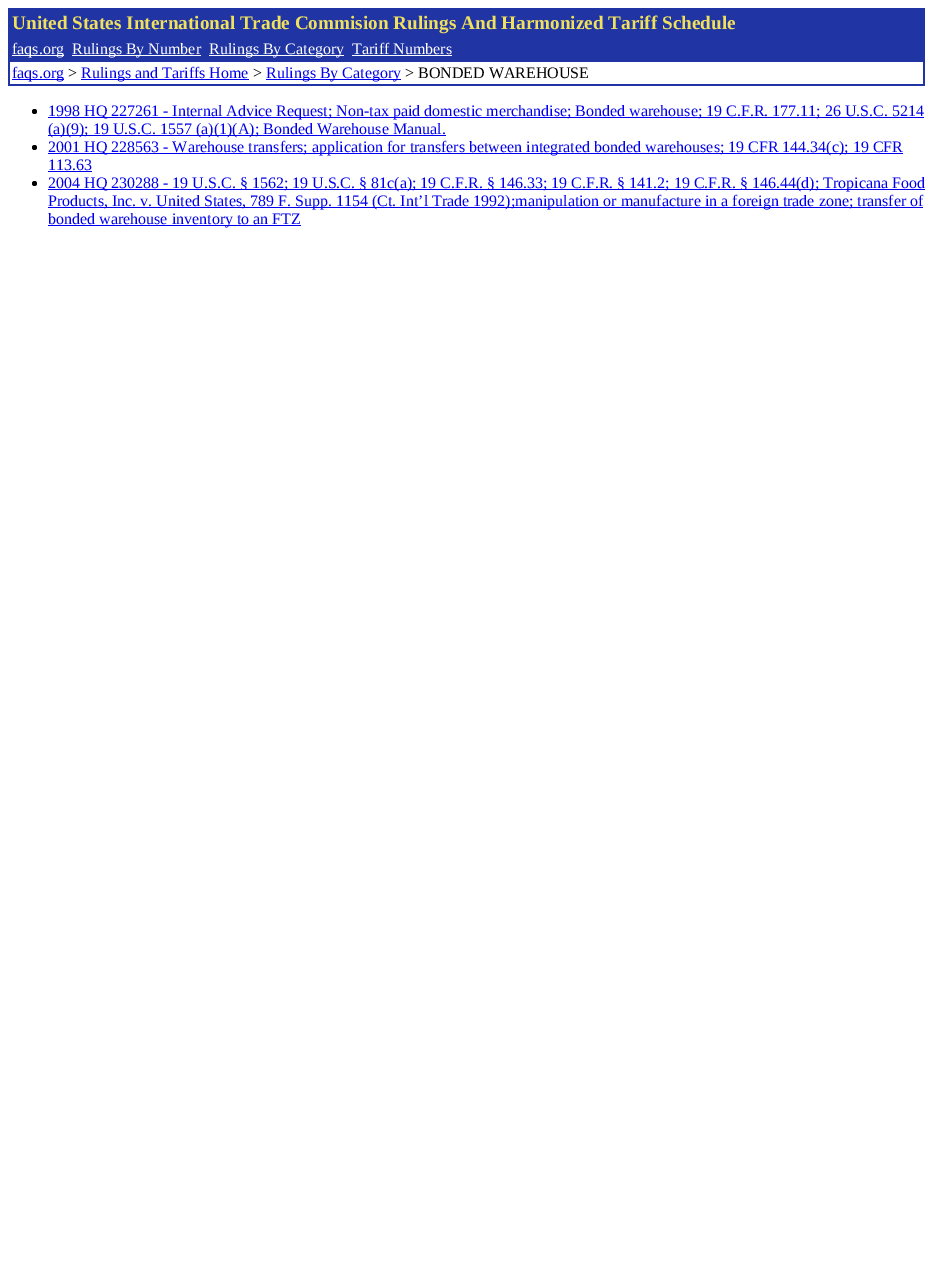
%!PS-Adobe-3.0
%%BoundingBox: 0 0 933 1288
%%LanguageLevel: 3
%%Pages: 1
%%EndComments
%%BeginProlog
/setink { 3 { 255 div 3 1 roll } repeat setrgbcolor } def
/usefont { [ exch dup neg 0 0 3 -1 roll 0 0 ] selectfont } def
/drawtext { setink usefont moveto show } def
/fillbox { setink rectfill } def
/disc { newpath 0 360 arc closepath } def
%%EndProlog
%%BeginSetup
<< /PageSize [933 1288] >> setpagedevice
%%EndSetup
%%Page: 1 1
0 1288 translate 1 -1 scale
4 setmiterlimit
0 0 933 1288 255 255 255 fillbox
8 8 917 78 33 52 163 fillbox
(United States International Trade Commision Rulings And Harmonized Tariff Schedule) 12 29 /LiberationSerif-Bold 19.2 239 225 93 drawtext
12 55 52 1 255 255 255 fillbox
(faqs.org) 12 54 /LiberationSerif-Regular 16 255 255 255 drawtext
72 55 129 1 255 255 255 fillbox
(Rulings By Number) 72 54 /LiberationSerif-Regular 16 255 255 255 drawtext
209 55 135 1 255 255 255 fillbox
(Rulings By Category) 209 54 /LiberationSerif-Regular 16 255 255 255 drawtext
(Tariff Numbers) 352 54 /LiberationSerif-Regular 16 255 255 255 drawtext
352 55 100 1 255 255 255 fillbox
10 62 913 22 255 255 255 fillbox
12 79 52 1 0 0 238 fillbox
(faqs.org) 12 78 /LiberationSerif-Regular 16 0 0 238 drawtext
(>) 68 78 /LiberationSerif-Regular 16 0 0 0 drawtext
81 79 168 1 0 0 238 fillbox
(Rulings and Tariffs Home) 81 78 /LiberationSerif-Regular 16 0 0 238 drawtext
(>) 253 78 /LiberationSerif-Regular 16 0 0 0 drawtext
266 79 135 1 0 0 238 fillbox
(Rulings By Category) 266 78 /LiberationSerif-Regular 16 0 0 238 drawtext
(> BONDED WAREHOUSE) 405 78 /LiberationSerif-Regular 16 0 0 0 drawtext
34.5 111.5 2.5 disc fill
48 117 876 1 0 0 238 fillbox
(1998 HQ 227261 - Internal Advice Request; Non-tax paid domestic merchandise; Bonded warehouse; 19 C.F.R. 177.11; 26 U.S.C. 5214) 48 116 /LiberationSerif-Regular 16 0 0 238 drawtext
48 135 398 1 0 0 238 fillbox
(\(a\)\(9\); 19 U.S.C. 1557 \(a\)\(1\)\(A\); Bonded Warehouse Manual.) 48 134 /LiberationSerif-Regular 16 0 0 238 drawtext
0 0 0 setink
34.5 147.5 2.5 disc fill
48 153 855 1 0 0 238 fillbox
(2001 HQ 228563 - Warehouse transfers; application for transfers between integrated bonded warehouses; 19 CFR 144.34\(c\); 19 CFR) 48 152 /LiberationSerif-Regular 16 0 0 238 drawtext
(113.63) 48 170 /LiberationSerif-Regular 16 0 0 238 drawtext
48 171 44 1 0 0 238 fillbox
0 0 0 setink
34.5 183.5 2.5 disc fill
48 189 877 1 0 0 238 fillbox
(2004 HQ 230288 - 19 U.S.C. § 1562; 19 U.S.C. § 81c\(a\); 19 C.F.R. § 146.33; 19 C.F.R. § 141.2; 19 C.F.R. § 146.44\(d\); Tropicana Food) 48 188 /LiberationSerif-Regular 16 0 0 238 drawtext
48 207 875 1 0 0 238 fillbox
(Products, Inc. v. United States, 789 F. Supp. 1154 \(Ct. Int’l Trade 1992\);manipulation or manufacture in a foreign trade zone; transfer of) 48 206 /LiberationSerif-Regular 16 0 0 238 drawtext
48 225 253 1 0 0 238 fillbox
(bonded warehouse inventory to an FTZ) 48 224 /LiberationSerif-Regular 16 0 0 238 drawtext
showpage
%%EOF
